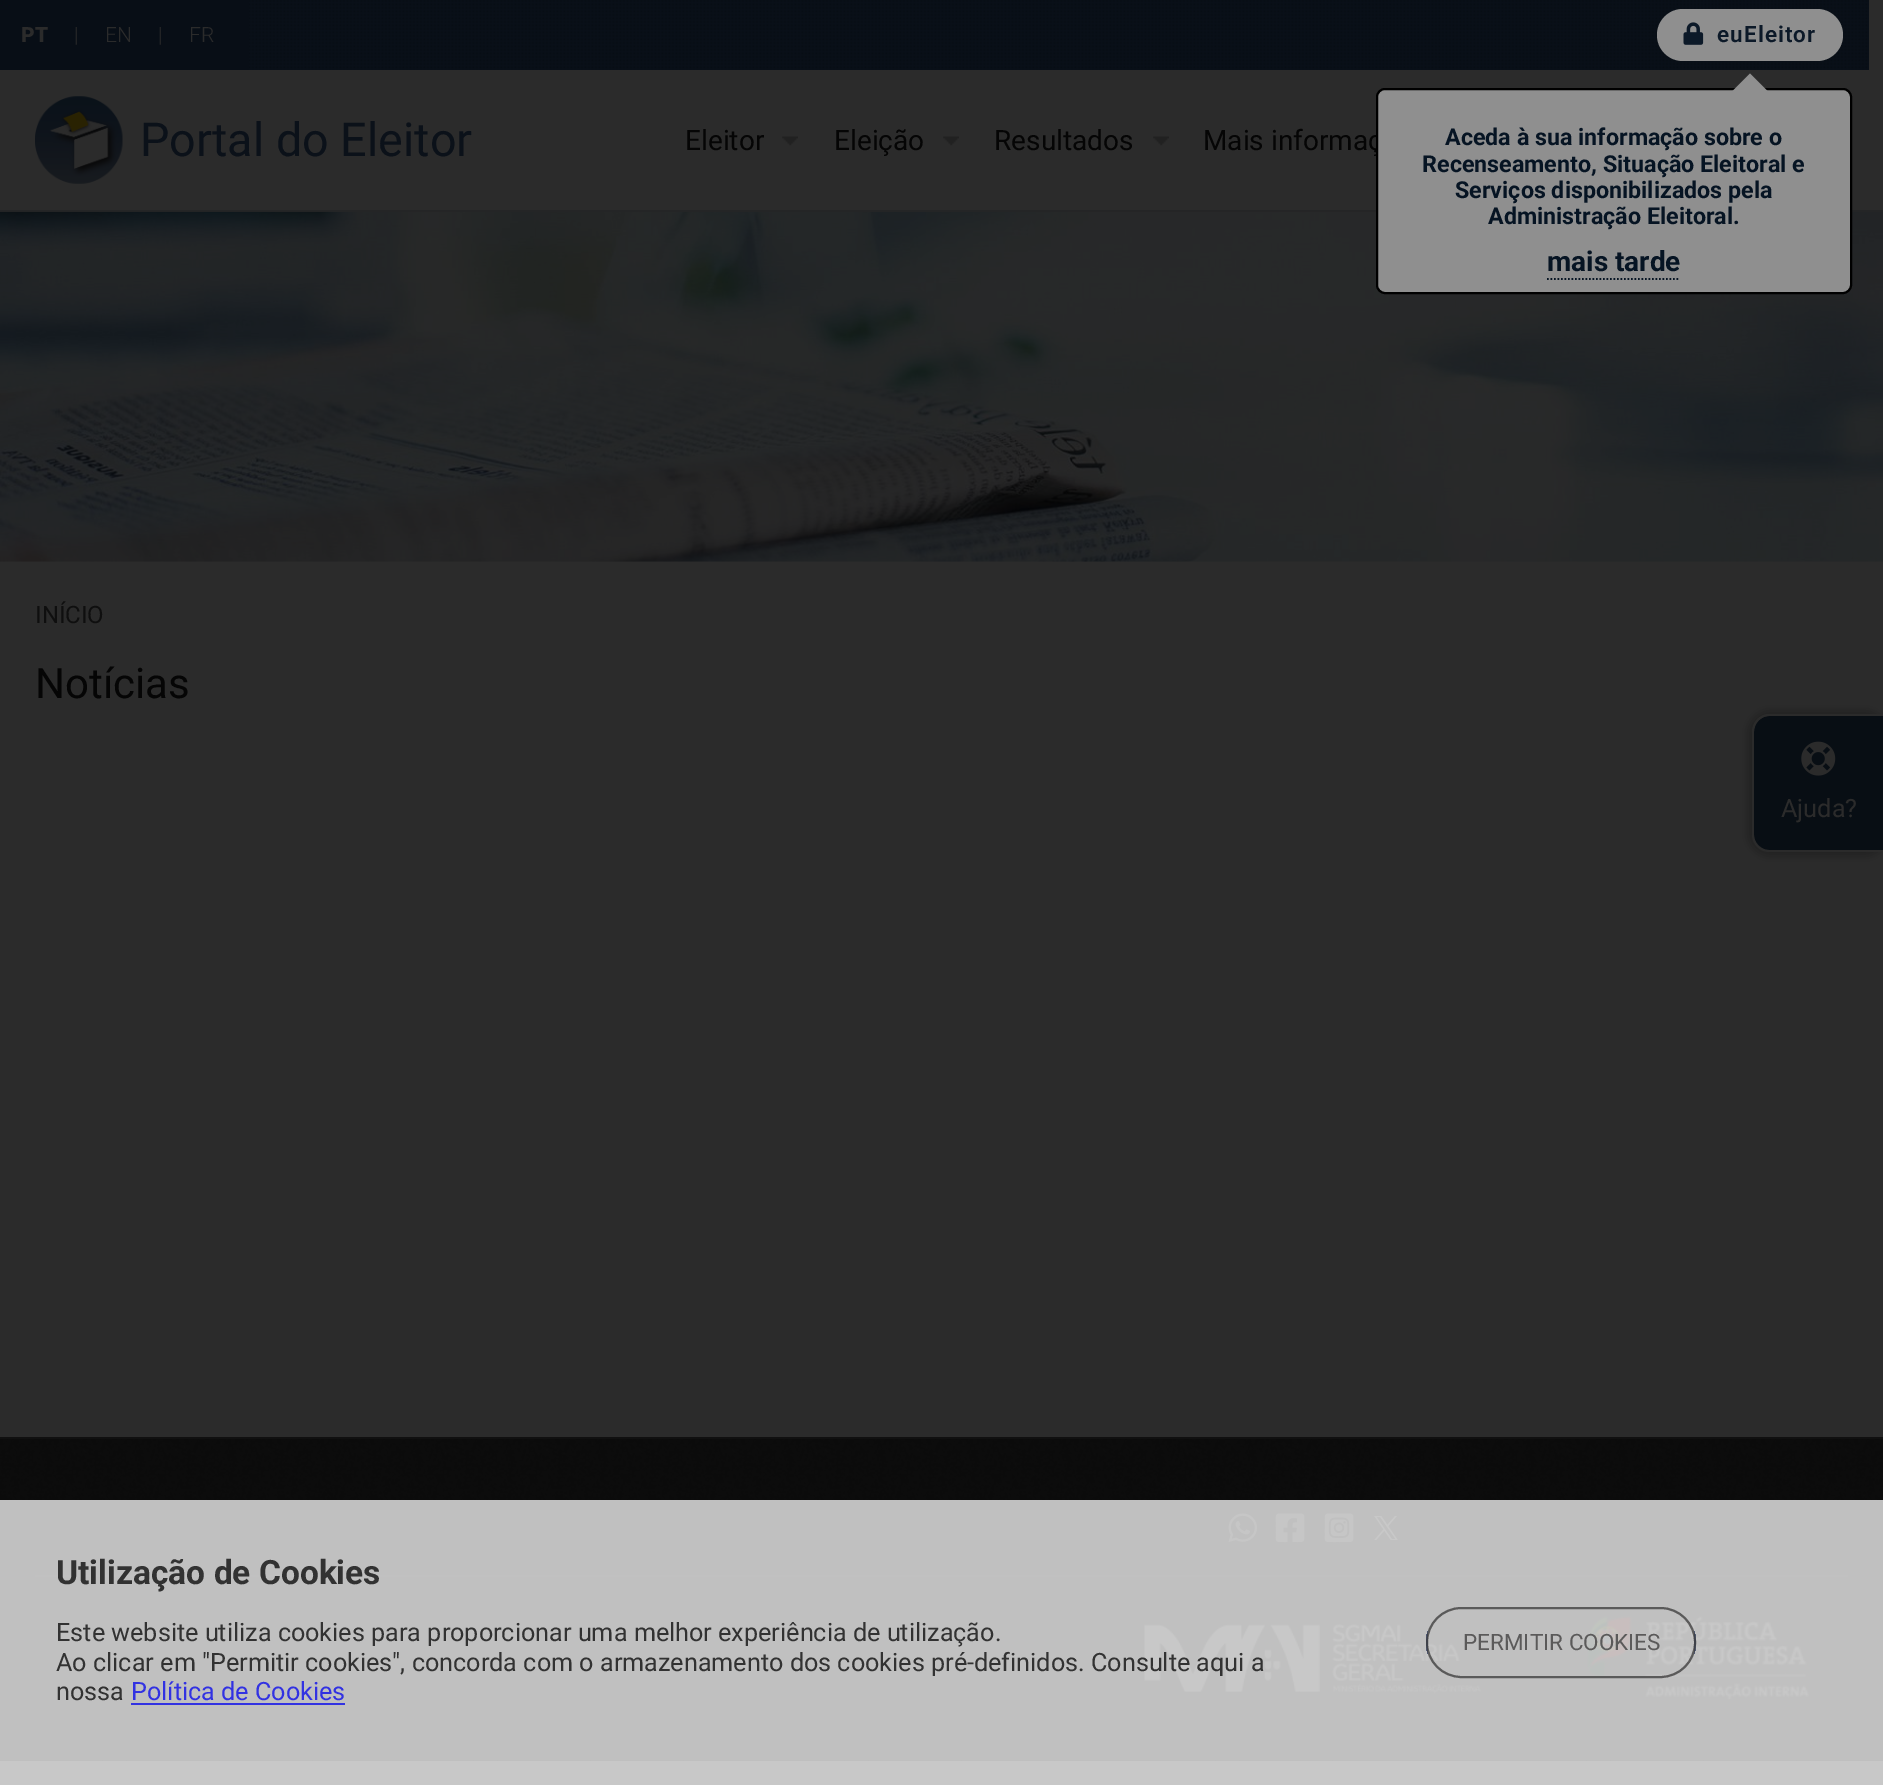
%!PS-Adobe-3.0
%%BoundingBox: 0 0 1883 1785
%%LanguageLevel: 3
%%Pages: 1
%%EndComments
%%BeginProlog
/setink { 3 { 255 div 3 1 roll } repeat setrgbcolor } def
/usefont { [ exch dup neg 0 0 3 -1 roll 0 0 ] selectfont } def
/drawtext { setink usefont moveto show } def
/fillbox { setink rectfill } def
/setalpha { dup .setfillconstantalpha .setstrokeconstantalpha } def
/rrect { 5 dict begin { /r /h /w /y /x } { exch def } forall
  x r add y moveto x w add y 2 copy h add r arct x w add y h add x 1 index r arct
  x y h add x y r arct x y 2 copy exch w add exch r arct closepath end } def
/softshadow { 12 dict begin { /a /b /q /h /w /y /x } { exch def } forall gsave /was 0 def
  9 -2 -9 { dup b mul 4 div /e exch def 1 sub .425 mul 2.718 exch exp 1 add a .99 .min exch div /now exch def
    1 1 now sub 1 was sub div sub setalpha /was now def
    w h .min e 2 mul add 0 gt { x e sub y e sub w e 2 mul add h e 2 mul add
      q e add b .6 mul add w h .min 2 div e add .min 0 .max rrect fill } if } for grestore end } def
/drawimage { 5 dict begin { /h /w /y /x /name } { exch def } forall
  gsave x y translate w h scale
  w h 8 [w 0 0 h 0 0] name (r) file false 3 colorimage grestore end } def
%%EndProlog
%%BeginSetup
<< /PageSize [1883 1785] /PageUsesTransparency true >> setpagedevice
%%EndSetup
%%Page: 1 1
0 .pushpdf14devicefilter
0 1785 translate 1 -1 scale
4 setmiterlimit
0 0 1883 1785 43 43 43 fillbox
0 210 1883 2 36 37 38 fillbox
249 0 1620 70 9 16 24 fillbox
(assets/img1.rgb) 249 0 1620 70 drawimage
0 0 249 70 8 14 22 fillbox
(PT) 21 42 /Roboto-Black 21 43 43 43 drawtext
(|) 74 42 /Roboto-Light 21 43 43 43 drawtext
(EN) 105 42 /Roboto-Light 21 43 43 43 drawtext
(|) 158 42 /Roboto-Light 21 43 43 43 drawtext
(FR) 189 42 /Roboto-Light 21 43 43 43 drawtext
143 143 143 setink
1657 9 186 52 26 rrect fill
(assets/img2.rgb) 1683 22 21 23 drawimage
/Roboto-SemiBold 22.5 usefont
12 25 40 setink
1717 42 moveto 1.1 0 (euEleitor) ashow
(Mais informaç) 1203 150 /Roboto-Regular 28 5 5 5 drawtext
(assets/img5.rgb) 0 211 1883 351 drawimage
143 143 143 setink
1377 89 474 204 8 rrect gsave fill grestore
0 0 0 setink
2 setlinewidth
stroke
143 143 143 setink
1767.5 91 moveto 1732.5 91 lineto 1750 73.5 lineto closepath fill
(Aceda à sua informação sobre o) 1445 145 /Roboto-Bold 23.3 6 20 35 drawtext
(Recenseamento, Situação Eleitoral e) 1422 172 /Roboto-Bold 23.3 6 20 35 drawtext
(Serviços disponibilizados pela) 1455 198 /Roboto-Bold 23.3 6 20 35 drawtext
(Administração Eleitoral.) 1488 224 /Roboto-Bold 23.3 6 20 35 drawtext
(mais tarde) 1547 271 /Roboto-Bold 28 6 20 35 drawtext
1.8 setlinewidth
[1.75 1.75] 0 setdash
1547 279 moveto 1680 279 lineto stroke
(assets/img3.rgb) 35 96 88 88 drawimage
(Portal do Eleitor) 140 156 /Roboto-Regular 46.75 11 17 25 drawtext
(assets/img4.rgb) 782 136 16 10 drawimage
(Eleitor) 685 150 /Roboto-Regular 28 5 5 5 drawtext
(assets/img4.rgb) 943 136 16 10 drawimage
(Eleição) 834 150 /Roboto-Regular 28 5 5 5 drawtext
(assets/img4.rgb) 1153 136 16 10 drawimage
(Resultados) 994 150 /Roboto-Regular 28 5 5 5 drawtext
(INÍCIO) 35 623 /Roboto-Regular 24 15 15 15 drawtext
(Notícias) 35 698 /Roboto-Regular 42 5 5 5 drawtext
4 4 4 setink
1748 711 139 145 21 5 0.3 softshadow
8 14 20 setink
1770 716 moveto 1883 716 lineto 1883 851 lineto 1770 851 lineto 1761 851 1754 844 1754 835 curveto 1754 732 lineto 1754 723 1761 716 1770 716 curveto closepath fill
43 43 43 setink
1769 714 moveto 1883 714 lineto 1883 852 lineto 1769 852 lineto 1760 852 1752 844 1752 835 curveto 1752 732 lineto 1752 722 1760 714 1769 714 curveto closepath 1769 716 moveto 1883 716 lineto 1883 850 lineto 1769 850 lineto 1761 850 1754 843 1754 835 curveto 1754 732 lineto 1754 723 1761 716 1769 716 curveto closepath eofill
(assets/img6.rgb) 1801 741 35 35 drawimage
(Ajuda?) 1781 817 /Roboto-Regular 25.2 43 43 43 drawtext
0 1760 1883 1 0 0 0 fillbox
(assets/img7.rgb) 0 1439 1883 322 drawimage
0 1437 1883 2 16 16 16 fillbox
(assets/img8.rgb) 1228 1513 30 29 drawimage
(assets/img9.rgb) 1275 1513 30 30 drawimage
(assets/img10.rgb) 1324 1513 30 30 drawimage
(assets/img11.rgb) 1374 1516 24 24 drawimage
35 1575 1813 2 16 16 16 fillbox
(assets/img12.rgb) 1144 1624 337 70 drawimage
(assets/img13.rgb) 1587 1615 223 85 drawimage
0.74 setalpha
0 1500 1883 285 255 255 255 fillbox
1 setalpha
(Utilização de Cookies) 56 1584 /Roboto-Bold 33.5 50 50 50 drawtext
(Este website utiliza cookies para proporcionar uma melhor experiência de utilização.) 56 1641 /Roboto-Regular 25.2 50 50 50 drawtext
(Ao clicar em "Permitir cookies", concorda com o armazenamento dos cookies pré-definidos. Consulte aqui a) 56 1671 /Roboto-Regular 25.2 50 50 50 drawtext
(nossa) 56 1700 /Roboto-Regular 25.2 50 50 50 drawtext
(Política de Cookies) 131 1700 /Roboto-Regular 25.2 50 50 226 drawtext
131 1703 214 2 50 50 226 fillbox
gsave
1426 1607 270 71 35.5 rrect clip newpath
0.74 setalpha
1426 1631 2 23 49 67 110 fillbox
1694 1631 2 23 49 67 110 fillbox
grestore
0.74 setalpha
55 54 54 setink
2 setlinewidth
[] 0 setdash
1427 1608 268 69 34.5 rrect stroke
1 setalpha
(PERMITIR COOKIES) 1463 1650 /Roboto-Regular 22.5 91 90 90 drawtext
.poppdf14devicefilter showpage
%%EOF
